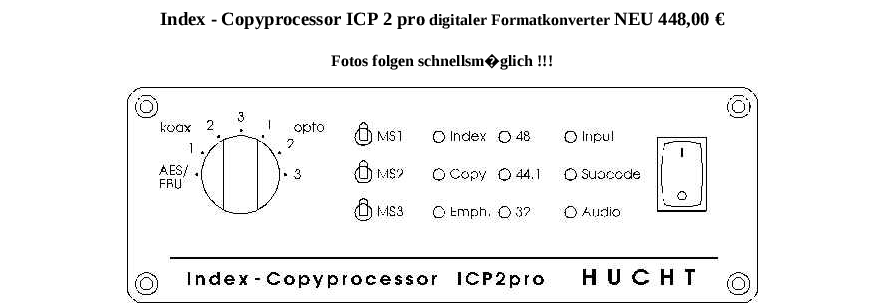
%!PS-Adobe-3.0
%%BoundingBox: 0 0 884 304
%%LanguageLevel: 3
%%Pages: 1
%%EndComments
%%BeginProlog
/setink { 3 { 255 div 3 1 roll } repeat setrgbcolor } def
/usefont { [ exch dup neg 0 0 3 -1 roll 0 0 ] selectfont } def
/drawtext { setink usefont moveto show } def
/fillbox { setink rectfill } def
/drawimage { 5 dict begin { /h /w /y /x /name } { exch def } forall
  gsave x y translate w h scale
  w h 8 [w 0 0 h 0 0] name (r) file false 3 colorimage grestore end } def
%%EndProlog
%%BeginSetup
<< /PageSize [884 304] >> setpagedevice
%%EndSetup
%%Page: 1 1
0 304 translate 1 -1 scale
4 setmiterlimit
0 0 884 304 255 255 255 fillbox
(Index - Copyprocessor ICP 2 pro) 160 25 /LiberationSerif-Bold 18.75 0 0 0 drawtext
(digitaler Formatkonverter) 429 25 /LiberationSerif-Bold 16 0 0 0 drawtext
(NEU 448,00 €) 614 25 /LiberationSerif-Bold 18.75 0 0 0 drawtext
(Fotos folgen schnellsm) 331 66 /LiberationSerif-Bold 16 0 0 0 drawtext
(�) 484 66 /NotoSans-Bold 16 0 0 0 drawtext
(glich !!!) 500 66 /LiberationSerif-Bold 16 0 0 0 drawtext
(assets/img1.rgb) 127 87 631 216 drawimage
showpage
%%EOF
